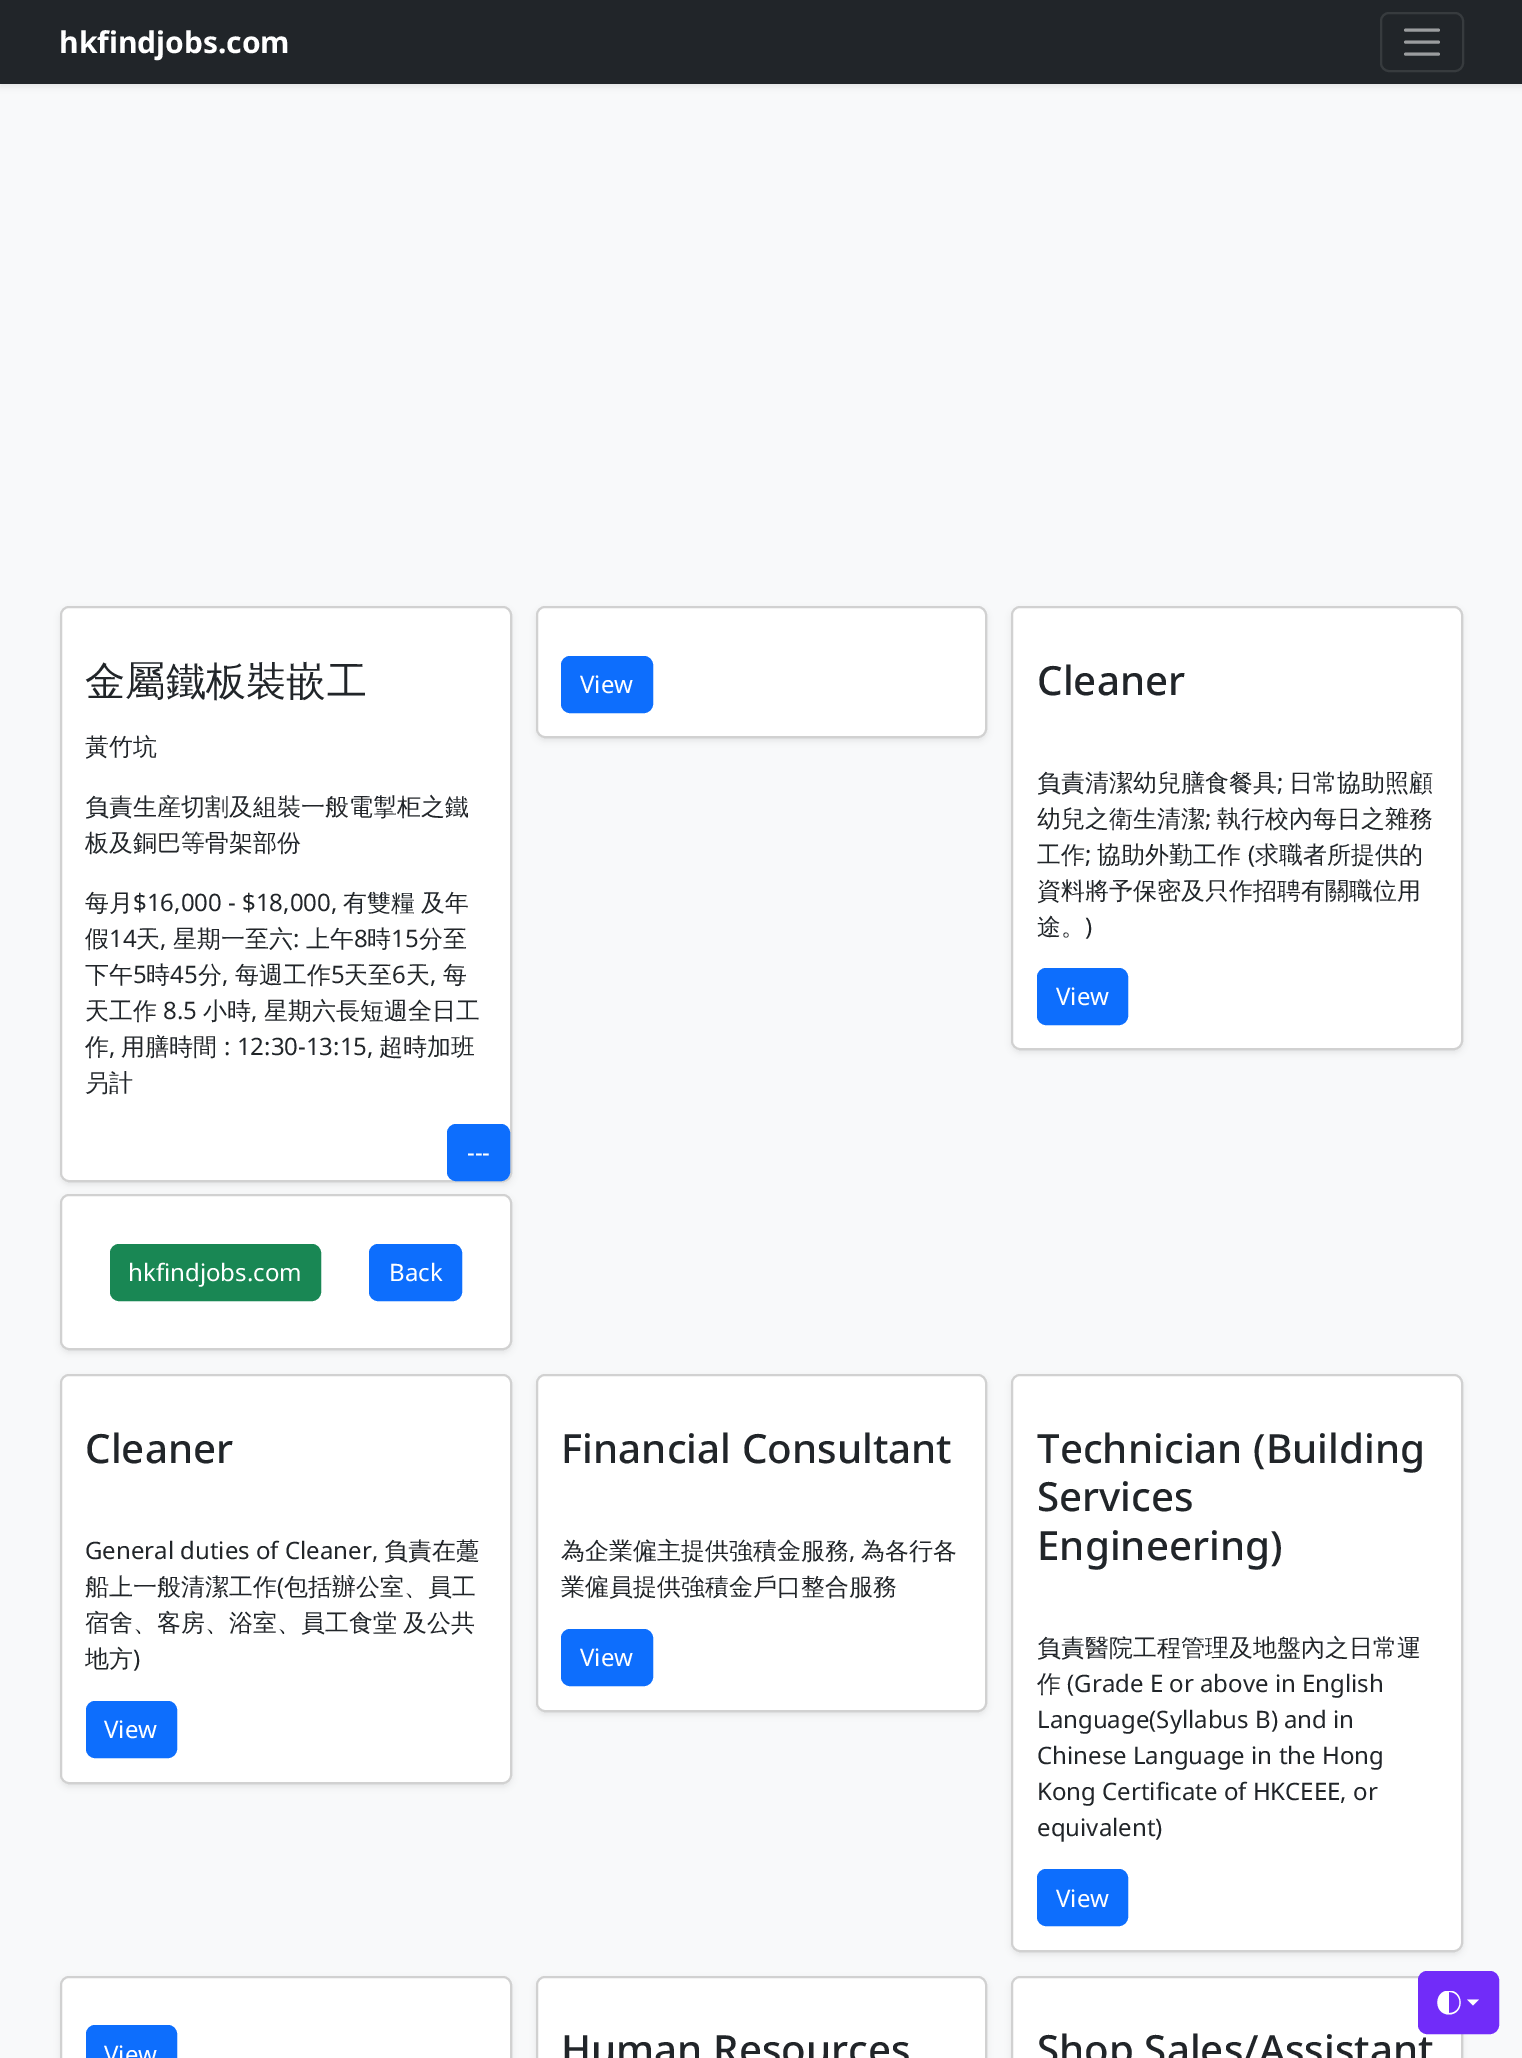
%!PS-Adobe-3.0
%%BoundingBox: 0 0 1522 2058
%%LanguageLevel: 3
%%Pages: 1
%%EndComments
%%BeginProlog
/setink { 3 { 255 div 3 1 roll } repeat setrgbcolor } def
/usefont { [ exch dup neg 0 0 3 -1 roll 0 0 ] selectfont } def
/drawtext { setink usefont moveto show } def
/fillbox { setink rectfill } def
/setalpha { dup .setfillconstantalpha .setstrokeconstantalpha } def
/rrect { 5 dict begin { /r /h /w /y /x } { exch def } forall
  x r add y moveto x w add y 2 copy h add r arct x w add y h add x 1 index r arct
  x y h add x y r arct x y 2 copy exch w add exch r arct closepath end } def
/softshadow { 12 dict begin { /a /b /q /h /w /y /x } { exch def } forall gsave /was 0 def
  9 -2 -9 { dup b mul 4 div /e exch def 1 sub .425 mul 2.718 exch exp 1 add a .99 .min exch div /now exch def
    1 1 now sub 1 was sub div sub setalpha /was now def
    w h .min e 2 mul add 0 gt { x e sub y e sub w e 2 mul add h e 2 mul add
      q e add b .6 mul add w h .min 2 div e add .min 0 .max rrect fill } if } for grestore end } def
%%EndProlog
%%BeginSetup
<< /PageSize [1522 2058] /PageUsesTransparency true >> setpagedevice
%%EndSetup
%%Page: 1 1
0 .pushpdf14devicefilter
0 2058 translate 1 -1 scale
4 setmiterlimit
0 0 1522 2058 248 249 250 fillbox
0 0 0 setink
0 3 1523 84 0 3 0.07 softshadow
0 0 1522 84 33 37 41 fillbox
(hkfindjobs.com) 59 53 /NotoSans-Bold 30 255 255 255 drawtext
55 59 62 setink
2 setlinewidth
1381 13 82 58 8 rrect stroke
155 157 159 setink
3 setlinewidth
1 setlinecap
1405.5 30 moveto 1438.5 30 lineto 1405.5 42 moveto 1438.5 42 lineto 1405.5 54 moveto 1438.5 54 lineto stroke
0 0 0 setink
60 609 452 576 9 3 0.07 softshadow
255 255 255 setink
60 606 452 576 9 rrect fill
0.18 setalpha
0 0 0 setink
2 setlinewidth
0 setlinecap
61 607 450 574 8 rrect stroke
1 setalpha
(金屬鐵板裝嵌工) 85 695 /WenQuanYiZenHei-Medium 40.25 33 37 41 drawtext
(黃竹坑) 85 755 /WenQuanYiZenHei-Medium 24 33 37 41 drawtext
(負責生産切割及組裝一般電掣柜之鐵) 85 815 /WenQuanYiZenHei-Medium 24 33 37 41 drawtext
(板及銅巴等骨架部份) 85 851 /WenQuanYiZenHei-Medium 24 33 37 41 drawtext
(每月) 85 911 /WenQuanYiZenHei-Medium 24 33 37 41 drawtext
($16,000 - $18,000,) 133 911 /NotoSans-Regular 24 33 37 41 drawtext
(有雙糧) 343 911 /WenQuanYiZenHei-Medium 24 33 37 41 drawtext
(及年) 421 911 /WenQuanYiZenHei-Medium 24 33 37 41 drawtext
(假) 85 947 /WenQuanYiZenHei-Medium 24 33 37 41 drawtext
(14) 109 947 /NotoSans-Regular 24 33 37 41 drawtext
(天) 136 947 /WenQuanYiZenHei-Medium 24 33 37 41 drawtext
(,) 160 947 /NotoSans-Regular 24 33 37 41 drawtext
(星期一至六) 173 947 /WenQuanYiZenHei-Medium 24 33 37 41 drawtext
(:) 293 947 /NotoSans-Regular 24 33 37 41 drawtext
(上午) 306 947 /WenQuanYiZenHei-Medium 24 33 37 41 drawtext
(8) 354 947 /NotoSans-Regular 24 33 37 41 drawtext
(時) 367 947 /WenQuanYiZenHei-Medium 24 33 37 41 drawtext
(15) 391 947 /NotoSans-Regular 24 33 37 41 drawtext
(分至) 419 947 /WenQuanYiZenHei-Medium 24 33 37 41 drawtext
(下午) 85 983 /WenQuanYiZenHei-Medium 24 33 37 41 drawtext
(5) 133 983 /NotoSans-Regular 24 33 37 41 drawtext
(時) 146 983 /WenQuanYiZenHei-Medium 24 33 37 41 drawtext
(45) 170 983 /NotoSans-Regular 24 33 37 41 drawtext
(分) 198 983 /WenQuanYiZenHei-Medium 24 33 37 41 drawtext
(,) 222 983 /NotoSans-Regular 24 33 37 41 drawtext
(每週工作) 235 983 /WenQuanYiZenHei-Medium 24 33 37 41 drawtext
(5) 331 983 /NotoSans-Regular 24 33 37 41 drawtext
(天至) 344 983 /WenQuanYiZenHei-Medium 24 33 37 41 drawtext
(6) 392 983 /NotoSans-Regular 24 33 37 41 drawtext
(天) 406 983 /WenQuanYiZenHei-Medium 24 33 37 41 drawtext
(,) 430 983 /NotoSans-Regular 24 33 37 41 drawtext
(每) 443 983 /WenQuanYiZenHei-Medium 24 33 37 41 drawtext
(天工作) 85 1019 /WenQuanYiZenHei-Medium 24 33 37 41 drawtext
(8.5) 163 1019 /NotoSans-Regular 24 33 37 41 drawtext
(小時) 203 1019 /WenQuanYiZenHei-Medium 24 33 37 41 drawtext
(,) 251 1019 /NotoSans-Regular 24 33 37 41 drawtext
(星期六長短週全日工) 264 1019 /WenQuanYiZenHei-Medium 24 33 37 41 drawtext
(作) 85 1055 /WenQuanYiZenHei-Medium 24 33 37 41 drawtext
(,) 109 1055 /NotoSans-Regular 24 33 37 41 drawtext
(用膳時間) 121 1055 /WenQuanYiZenHei-Medium 24 33 37 41 drawtext
(: 12:30-13:15,) 224 1055 /NotoSans-Regular 24 33 37 41 drawtext
(超時加班) 379 1055 /WenQuanYiZenHei-Medium 24 33 37 41 drawtext
(叧計) 85 1091 /WenQuanYiZenHei-Medium 24 33 37 41 drawtext
13 110 253 setink
448 1125 61 55 8 rrect gsave fill grestore
stroke
(---) 467 1161 /NotoSans-Regular 24 255 255 255 drawtext
0 0 0 setink
60 1197 452 156 9 3 0.07 softshadow
255 255 255 setink
60 1194 452 156 9 rrect fill
0.18 setalpha
0 0 0 setink
61 1195 450 154 8 rrect stroke
1 setalpha
25 135 84 setink
111 1245 209 55 8 rrect gsave fill grestore
stroke
(hkfindjobs.com) 128 1281 /NotoSans-Regular 24 255 255 255 drawtext
13 110 253 setink
370 1245 91 55 8 rrect gsave fill grestore
stroke
(Back) 389 1281 /NotoSans-Regular 24 255 255 255 drawtext
0 0 0 setink
536 609 451 132 9 3 0.07 softshadow
255 255 255 setink
536 606 451 132 9 rrect fill
0.18 setalpha
0 0 0 setink
537 607 449 130 8 rrect stroke
1 setalpha
13 110 253 setink
562 657 90 55 8 rrect gsave fill grestore
stroke
(View) 580 693 /NotoSans-Regular 24 255 255 255 drawtext
0 0 0 setink
1011 609 452 444 9 3 0.07 softshadow
255 255 255 setink
1011 606 452 444 9 rrect fill
0.18 setalpha
0 0 0 setink
1012 607 450 442 8 rrect stroke
1 setalpha
(Cleaner) 1037 695 /NotoSans-Medium 40.25 33 37 41 drawtext
(負責清潔幼兒膳食餐具) 1037 791 /WenQuanYiZenHei-Medium 24 33 37 41 drawtext
(;) 1277 791 /NotoSans-Regular 24 33 37 41 drawtext
(日常協助照顧) 1289 791 /WenQuanYiZenHei-Medium 24 33 37 41 drawtext
(幼兒之衛生清潔) 1037 827 /WenQuanYiZenHei-Medium 24 33 37 41 drawtext
(;) 1205 827 /NotoSans-Regular 24 33 37 41 drawtext
(執行校內每日之雜務) 1217 827 /WenQuanYiZenHei-Medium 24 33 37 41 drawtext
(工作) 1037 863 /WenQuanYiZenHei-Medium 24 33 37 41 drawtext
(;) 1085 863 /NotoSans-Regular 24 33 37 41 drawtext
(協助外勤工作) 1097 863 /WenQuanYiZenHei-Medium 24 33 37 41 drawtext
(\() 1248 863 /NotoSans-Regular 24 33 37 41 drawtext
(求職者所提供的) 1255 863 /WenQuanYiZenHei-Medium 24 33 37 41 drawtext
(資料將予保密及只作招聘有關職位用) 1037 899 /WenQuanYiZenHei-Medium 24 33 37 41 drawtext
(途。) 1037 935 /WenQuanYiZenHei-Medium 24 33 37 41 drawtext
(\)) 1085 935 /NotoSans-Regular 24 33 37 41 drawtext
13 110 253 setink
1038 969 89 55 8 rrect gsave fill grestore
stroke
(View) 1056 1005 /NotoSans-Regular 24 255 255 255 drawtext
0 0 0 setink
60 1377 452 410 9 3 0.07 softshadow
255 255 255 setink
60 1374 452 410 9 rrect fill
0.18 setalpha
0 0 0 setink
61 1375 450 408 8 rrect stroke
1 setalpha
(Cleaner) 85 1463 /NotoSans-Medium 40.25 33 37 41 drawtext
(General duties of Cleaner,) 85 1559 /NotoSans-Regular 24 33 37 41 drawtext
(負責在躉) 384 1559 /WenQuanYiZenHei-Medium 24 33 37 41 drawtext
(船上一般清潔工作 包括辦公室、員工) 85 1595 /WenQuanYiZenHei-Medium 24 33 37 41 drawtext
(\() 277 1595 /NotoSans-Regular 24 33 37 41 drawtext
/WenQuanYiZenHei-Medium 24 usefont
85 1631 moveto -1 0 32 (宿舍、客房、浴室、員工食堂 及公共) widthshow
(地方) 85 1667 /WenQuanYiZenHei-Medium 24 33 37 41 drawtext
(\)) 133 1667 /NotoSans-Regular 24 33 37 41 drawtext
13 110 253 setink
87 1702 89 55 8 rrect gsave fill grestore
stroke
(View) 104 1738 /NotoSans-Regular 24 255 255 255 drawtext
0 0 0 setink
536 1377 451 338 9 3 0.07 softshadow
255 255 255 setink
536 1374 451 338 9 rrect fill
0.18 setalpha
0 0 0 setink
537 1375 449 336 8 rrect stroke
1 setalpha
(Financial Consultant) 561 1463 /NotoSans-Medium 40.25 33 37 41 drawtext
(為企業僱主提供強積金服務) 561 1559 /WenQuanYiZenHei-Medium 24 33 37 41 drawtext
(,) 849 1559 /NotoSans-Regular 24 33 37 41 drawtext
(為各行各) 861 1559 /WenQuanYiZenHei-Medium 24 33 37 41 drawtext
(業僱員提供強積金戶口整合服務) 561 1595 /WenQuanYiZenHei-Medium 24 33 37 41 drawtext
13 110 253 setink
562 1630 90 55 8 rrect gsave fill grestore
stroke
(View) 580 1666 /NotoSans-Regular 24 255 255 255 drawtext
0 0 0 setink
1011 1377 452 578 9 3 0.07 softshadow
255 255 255 setink
1011 1374 452 578 9 rrect fill
0.18 setalpha
0 0 0 setink
1012 1375 450 576 8 rrect stroke
1 setalpha
(Technician \(Building) 1037 1463 /NotoSans-Medium 40.25 33 37 41 drawtext
(Services) 1037 1511 /NotoSans-Medium 40.25 33 37 41 drawtext
(Engineering\)) 1037 1560 /NotoSans-Medium 40.25 33 37 41 drawtext
(負責醫院工程管理及地盤內之日常運) 1037 1656 /WenQuanYiZenHei-Medium 24 33 37 41 drawtext
(作) 1037 1692 /WenQuanYiZenHei-Medium 24 33 37 41 drawtext
(\(Grade E or above in English) 1067 1692 /NotoSans-Regular 24 33 37 41 drawtext
(Language\(Syllabus B\) and in) 1037 1728 /NotoSans-Regular 24 33 37 41 drawtext
(Chinese Language in the Hong) 1037 1764 /NotoSans-Regular 24 33 37 41 drawtext
(Kong Certificate of HKCEEE, or) 1037 1800 /NotoSans-Regular 24 33 37 41 drawtext
(equivalent\)) 1037 1836 /NotoSans-Regular 24 33 37 41 drawtext
13 110 253 setink
1038 1870 89 55 8 rrect gsave fill grestore
stroke
(View) 1056 1907 /NotoSans-Regular 24 255 255 255 drawtext
0 0 0 setink
60 1979 452 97 9 3 0.07 softshadow
255 255 255 setink
60 1976 452 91 9 rrect fill
0.18 setalpha
0 0 0 setink
61 1977 450 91 8 rrect stroke
1 setalpha
13 110 253 setink
87 2026 89 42 8 rrect gsave fill grestore
stroke
(View) 104 2063 /NotoSans-Regular 24 255 255 255 drawtext
0 0 0 setink
536 1979 451 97 9 3 0.07 softshadow
255 255 255 setink
536 1976 451 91 9 rrect fill
0.18 setalpha
0 0 0 setink
537 1977 449 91 8 rrect stroke
1 setalpha
(Human Resources) 561 2064 /NotoSans-Medium 40.25 33 37 41 drawtext
0 0 0 setink
1011 1979 452 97 9 3 0.07 softshadow
255 255 255 setink
1011 1976 452 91 9 rrect fill
0.18 setalpha
0 0 0 setink
1012 1977 450 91 8 rrect stroke
1 setalpha
(Shop Sales/Assistant) 1037 2064 /NotoSans-Medium 40.25 33 37 41 drawtext
113 44 249 setink
1419 1972 79 61 8 rrect gsave fill grestore
stroke
gsave
1437 1991 24 24 rectclip
255 255 255 setink
1449 2013 moveto 1463 2013 1463 1992 1449 1992 curveto closepath 1449 2014.5 moveto 1433.5 2014.5 1433.5 1990.5 1449 1990.5 curveto 1464.5 1990.5 1464.5 2014.5 1449 2014.5 curveto closepath fill
grestore
255 255 255 setink
1467 1999.5 moveto 1479 1999.5 lineto 1473 2005.5 lineto closepath fill
.poppdf14devicefilter showpage
%%EOF
